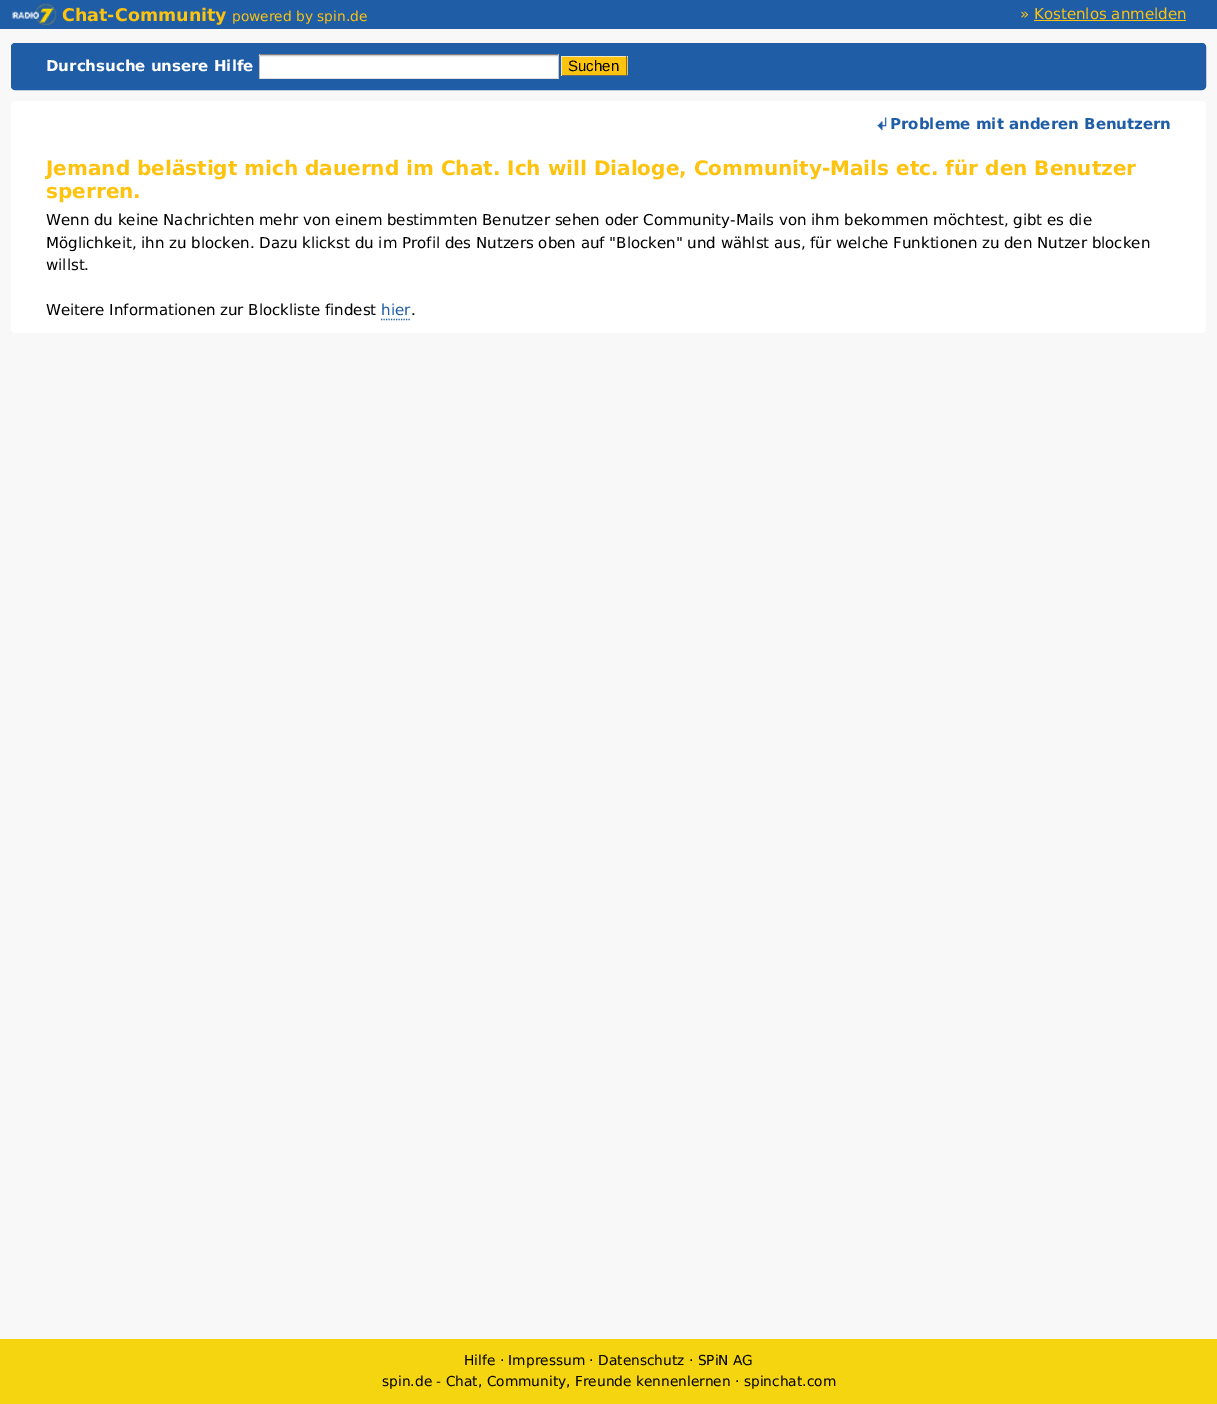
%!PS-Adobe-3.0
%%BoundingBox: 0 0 1217 1404
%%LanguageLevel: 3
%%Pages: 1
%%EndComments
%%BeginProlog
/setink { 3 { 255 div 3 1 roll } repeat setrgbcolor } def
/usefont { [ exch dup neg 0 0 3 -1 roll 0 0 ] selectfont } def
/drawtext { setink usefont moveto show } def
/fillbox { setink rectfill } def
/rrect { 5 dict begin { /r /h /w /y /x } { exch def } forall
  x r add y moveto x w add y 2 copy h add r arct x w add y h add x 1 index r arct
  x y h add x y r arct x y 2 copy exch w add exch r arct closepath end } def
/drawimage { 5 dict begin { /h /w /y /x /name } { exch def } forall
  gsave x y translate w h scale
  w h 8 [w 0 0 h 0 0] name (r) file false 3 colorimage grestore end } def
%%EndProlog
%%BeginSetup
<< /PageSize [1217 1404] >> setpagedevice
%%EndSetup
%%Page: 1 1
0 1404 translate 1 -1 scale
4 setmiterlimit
0 0 1217 1404 248 248 248 fillbox
0 0 1217 29 31 93 166 fillbox
(assets/img1.rgb) 12 3 45 22 drawimage
(Chat-Community) 62 21 /DejaVuSans-Bold 17.5 253 195 15 drawtext
(powered by spin.de) 232 21 /DejaVuSans-Regular 13.75 253 195 15 drawtext
(») 1020 19 /DejaVuSans-Regular 15 253 195 15 drawtext
(Kostenlos anmelden) 1034 19 /DejaVuSans-Regular 15 253 195 15 drawtext
1034 20 152 1 253 195 15 fillbox
31 93 166 setink
11.5 43.5 1194 46 3.5 rrect gsave fill grestore
stroke
(Durchsuche unsere Hilfe) 46 71 /DejaVuSans-Bold 15 255 255 255 drawtext
260 56 298 22 255 255 255 fillbox
(assets/img2.rgb) 258 55 300 2 drawimage
259 54 300 1 124 124 124 fillbox
558 54 1 25 195 195 195 fillbox
259 78 300 1 221 221 221 fillbox
259 54 1 25 195 195 195 fillbox
562 57 66 18 253 195 15 fillbox
561 56 67 1 245 232 180 fillbox
626 56 1 20 107 107 107 fillbox
561 75 67 1 107 107 107 fillbox
561 56 1 20 245 232 180 fillbox
(Suchen) 568 71 /LiberationSans-Regular 15 0 0 0 drawtext
255 255 255 setink
11 101 1195 232 4 rrect fill
(assets/img3.rgb) 877 117 10 14 drawimage
(Probleme mit anderen Benutzern) 890 129 /DejaVuSans-Bold 15 31 93 166 drawtext
(Jemand belästigt mich dauernd im Chat. Ich will Dialoge, Community-Mails etc. für den Benutzer) 46 175 /DejaVuSans-Bold 20 253 195 15 drawtext
(sperren.) 46 198 /DejaVuSans-Bold 20 253 195 15 drawtext
(Wenn du keine Nachrichten mehr von einem bestimmten Benutzer sehen oder Community-Mails von ihm bekommen möchtest, gibt es die) 46 225 /DejaVuSans-Regular 15 0 0 0 drawtext
(Möglichkeit, ihn zu blocken. Dazu klickst du im Profil des Nutzers oben auf "Blocken" und wählst aus, für welche Funktionen zu den Nutzer blocken) 46 248 /DejaVuSans-Regular 15 0 0 0 drawtext
(willst.) 46 270 /DejaVuSans-Regular 15 0 0 0 drawtext
(Weitere Informationen zur Blockliste findest) 46 315 /DejaVuSans-Regular 15 0 0 0 drawtext
(hier) 381 315 /DejaVuSans-Regular 15 31 93 166 drawtext
1.2 setlinewidth
[1.25 1.25] 0 setdash
381 319.5 moveto 410 319.5 lineto stroke
(.) 411 315 /DejaVuSans-Regular 15 0 0 0 drawtext
0 1339 1217 65 245 212 16 fillbox
(Hilfe · Impressum · Datenschutz · SPiN AG) 464 1365 /DejaVuSans-Regular 13.75 0 0 0 drawtext
(spin.de - Chat, Community, Freunde kennenlernen · spinchat.com) 382 1386 /DejaVuSans-Regular 13.75 0 0 0 drawtext
showpage
%%EOF
